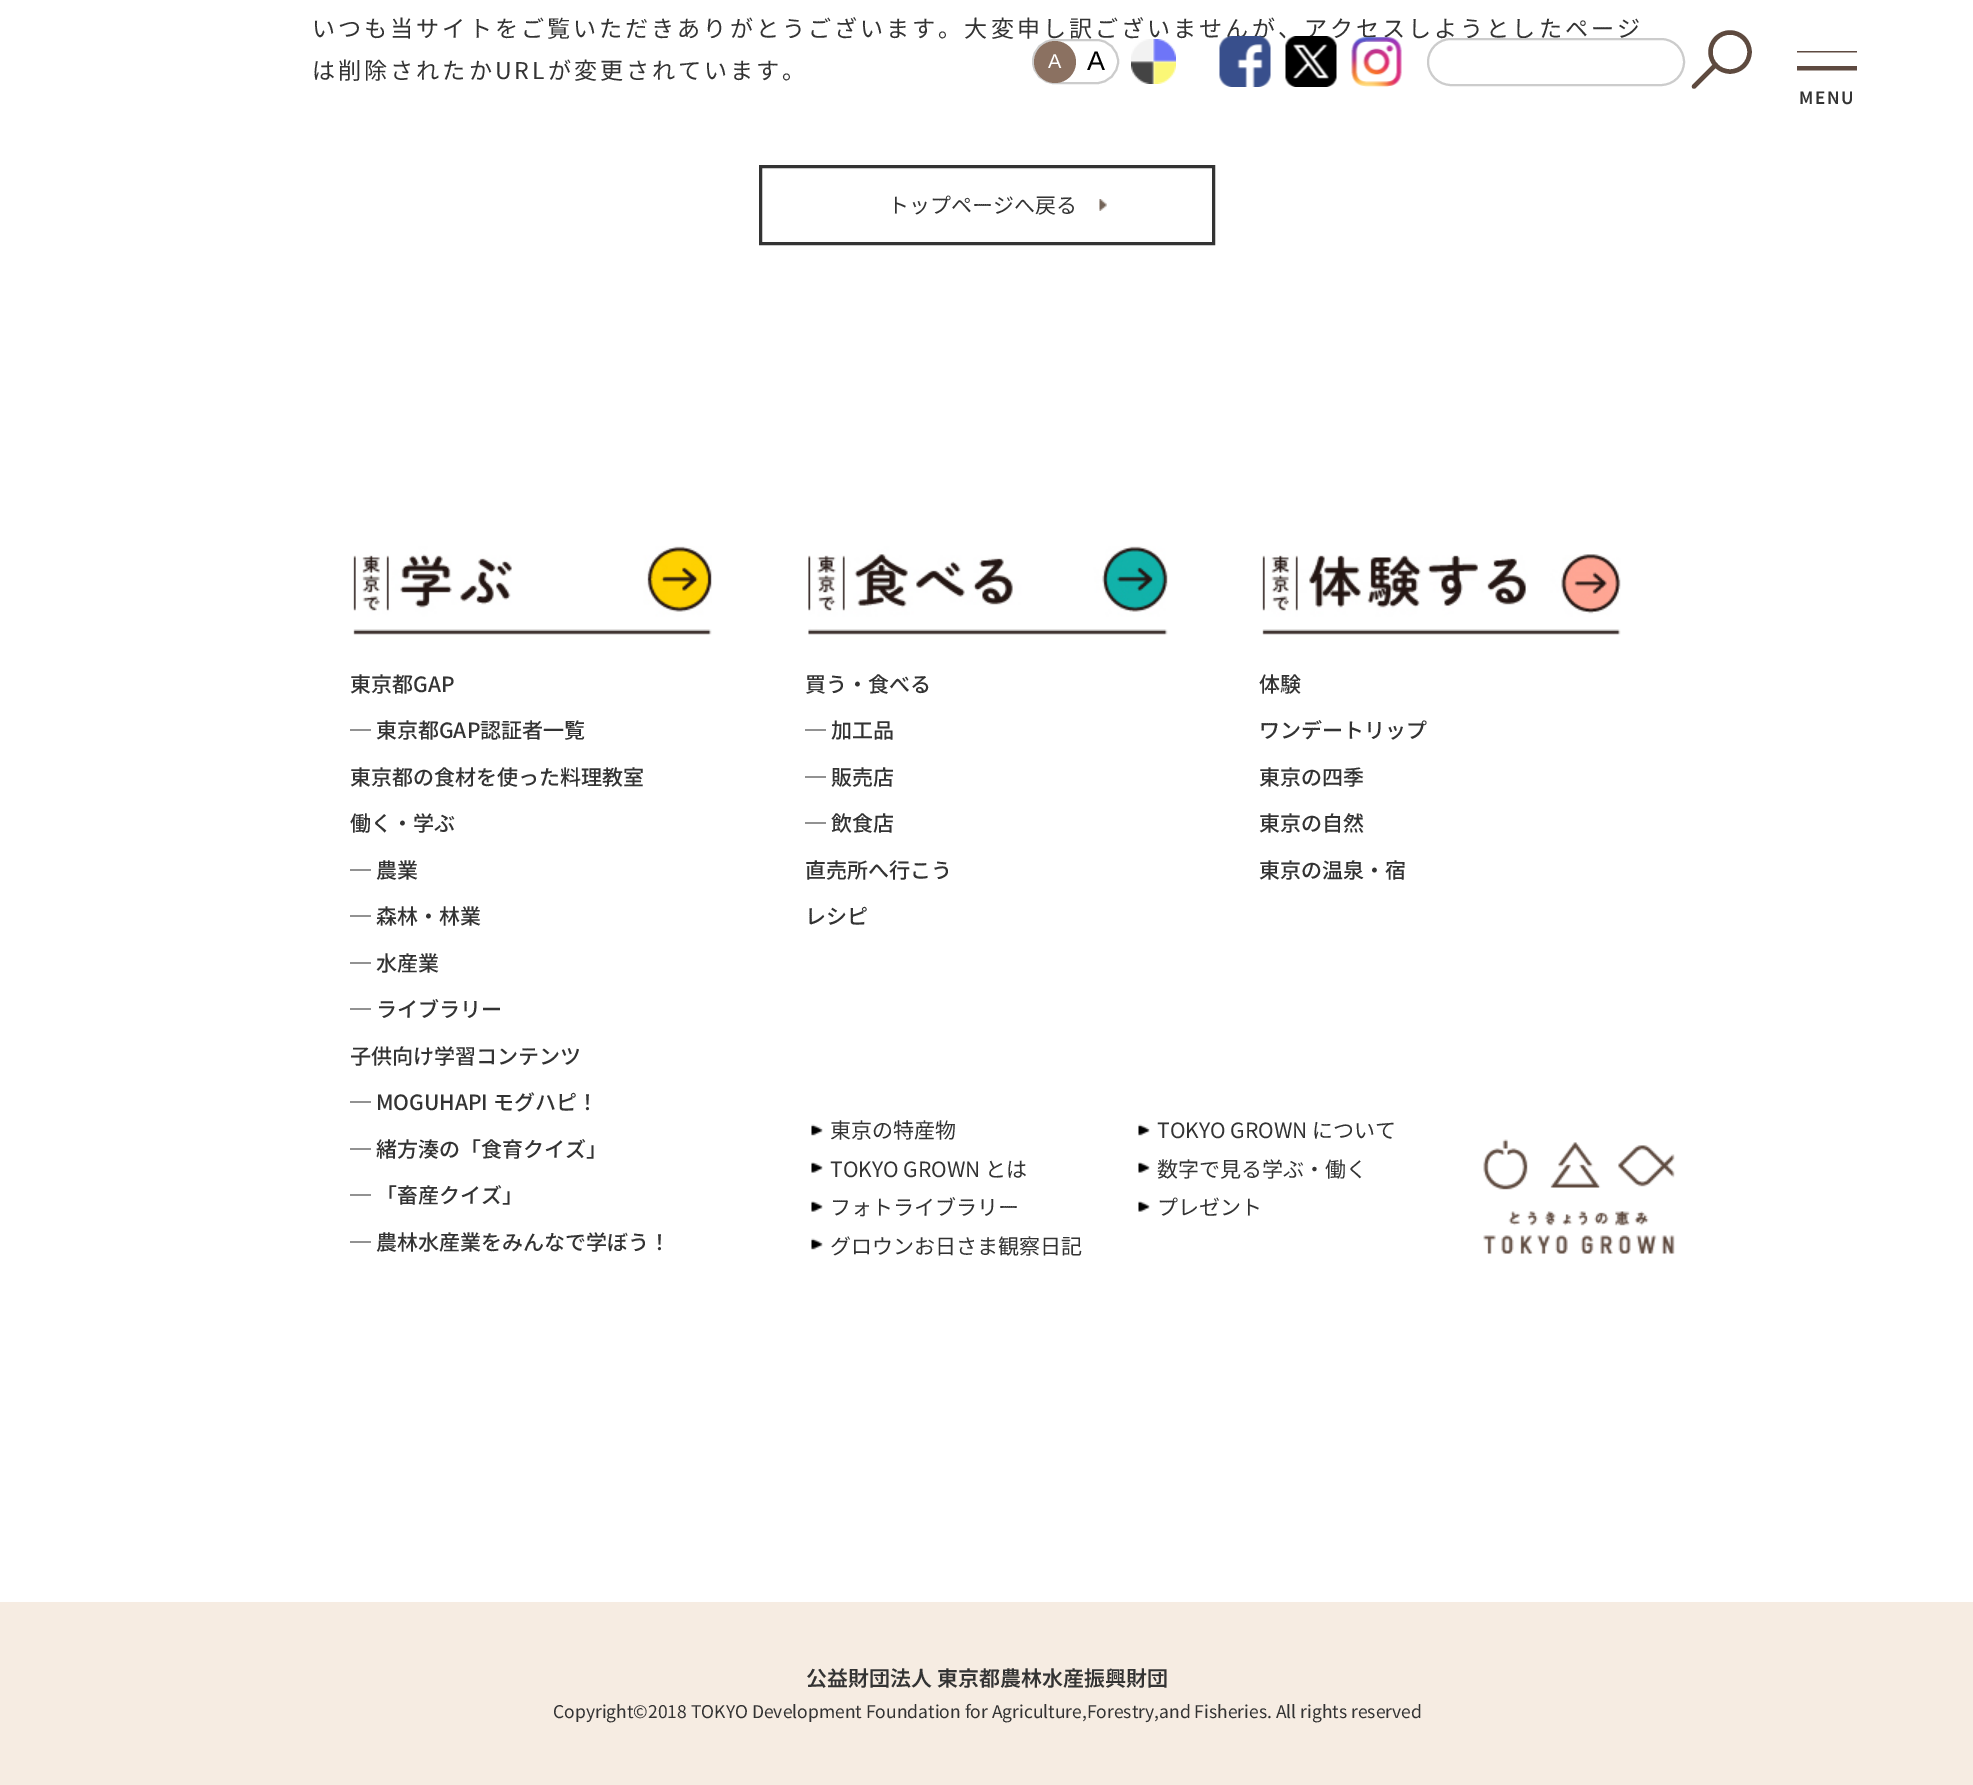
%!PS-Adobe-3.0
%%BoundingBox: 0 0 1973 1785
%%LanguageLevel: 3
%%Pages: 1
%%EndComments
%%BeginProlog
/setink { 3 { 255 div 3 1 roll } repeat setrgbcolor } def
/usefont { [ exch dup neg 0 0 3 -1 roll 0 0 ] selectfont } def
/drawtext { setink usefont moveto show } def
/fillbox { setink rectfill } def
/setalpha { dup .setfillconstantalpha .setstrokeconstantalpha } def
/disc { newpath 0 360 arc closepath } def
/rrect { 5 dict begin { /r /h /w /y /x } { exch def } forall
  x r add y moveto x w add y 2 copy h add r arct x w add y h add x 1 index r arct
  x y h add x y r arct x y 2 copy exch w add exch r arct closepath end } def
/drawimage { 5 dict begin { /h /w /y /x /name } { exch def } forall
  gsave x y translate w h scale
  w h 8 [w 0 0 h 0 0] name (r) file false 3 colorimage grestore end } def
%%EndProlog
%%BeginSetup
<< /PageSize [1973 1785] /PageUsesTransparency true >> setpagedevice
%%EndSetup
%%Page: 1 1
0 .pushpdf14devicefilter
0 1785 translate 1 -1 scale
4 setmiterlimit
0 0 1973 1785 255 255 255 fillbox
/NotoSansJP-Regular 23.1 usefont
51 51 51 setink
312 37 moveto 3 0 (いつも当サイトをご覧いただきありがとうございます。大変申し訳ございませんが、アクセスしようとしたページ) ashow
312 79 moveto 3 0 (は削除されたかURLが変更されています。) ashow
3 setlinewidth
760.5 166.5 453 77 rectstroke
(assets/img1.rgb) 1099 199 8 12 drawimage
(トップページへ戻る) 888 213 /NotoSansJP-Regular 21 51 51 51 drawtext
204 204 204 setink
2 setlinewidth
1033 40 85 43 21.5 rrect stroke
139 113 97 setink
1055 62 21 disc fill
(A) 1048 68 /LiberationSans-Regular 20 255 255 255 drawtext
(A) 1087 70 /LiberationSans-Regular 27 0 0 0 drawtext
(assets/img2.rgb) 1131 39 45 45 drawimage
(assets/img3.rgb) 1219 36 52 51 drawimage
(assets/img4.rgb) 1285 36 52 51 drawimage
(assets/img5.rgb) 1351 37 51 50 drawimage
0.7 setalpha
255 255 255 setink
1428 39 256 46 23 rrect fill
1 setalpha
204 204 204 setink
1428 39 256 46 23 rrect stroke
94 74 63 setink
4.4 setlinewidth
1730 52 19.5 disc stroke
1 setlinecap
1 setlinejoin
1715.5 65 moveto 1694 86.5 lineto stroke
(assets/img6.rgb) 1797 51 60 20 drawimage
/NotoSansJP-SemiBold 17 usefont
51 51 51 setink
1799 104 moveto 1.5 0 (MENU) ashow
(assets/img7.rgb) 353 546 359 89 drawimage
(東京都GAP) 350 692 /NotoSansJP-Medium 21 51 51 51 drawtext
(─ 東京都GAP認証者一覧) 350 738 /NotoSansJP-Medium 21 51 51 51 drawtext
(東京都の食材を使った料理教室) 350 785 /NotoSansJP-Medium 21 51 51 51 drawtext
(働く・学ぶ) 350 831 /NotoSansJP-Medium 21 51 51 51 drawtext
(─ 農業) 350 878 /NotoSansJP-Medium 21 51 51 51 drawtext
(─ 森林・林業) 350 924 /NotoSansJP-Medium 21 51 51 51 drawtext
(─ 水産業) 350 971 /NotoSansJP-Medium 21 51 51 51 drawtext
(─ ライブラリー) 350 1017 /NotoSansJP-Medium 21 51 51 51 drawtext
(子供向け学習コンテンツ) 350 1064 /NotoSansJP-Medium 21 51 51 51 drawtext
(─ MOGUHAPI モグハピ！) 350 1110 /NotoSansJP-Medium 21 51 51 51 drawtext
(─ 緒方湊の「食育クイズ」) 350 1157 /NotoSansJP-Medium 21 51 51 51 drawtext
(─ 「畜産クイズ」) 350 1203 /NotoSansJP-Medium 21 51 51 51 drawtext
(─ 農林水産業をみんなで学ぼう！) 350 1250 /NotoSansJP-Medium 21 51 51 51 drawtext
(assets/img8.rgb) 808 546 360 89 drawimage
(買う・食べる) 805 692 /NotoSansJP-Medium 21 51 51 51 drawtext
(─ 加工品) 805 738 /NotoSansJP-Medium 21 51 51 51 drawtext
(─ 販売店) 805 785 /NotoSansJP-Medium 21 51 51 51 drawtext
(─ 飲食店) 805 831 /NotoSansJP-Medium 21 51 51 51 drawtext
(直売所へ行こう) 805 878 /NotoSansJP-Medium 21 51 51 51 drawtext
(レシピ) 805 924 /NotoSansJP-Medium 21 51 51 51 drawtext
(assets/img9.rgb) 1262 554 359 81 drawimage
(体験) 1259 692 /NotoSansJP-Medium 21 51 51 51 drawtext
(ワンデートリップ) 1259 738 /NotoSansJP-Medium 21 51 51 51 drawtext
(東京の四季) 1259 785 /NotoSansJP-Medium 21 51 51 51 drawtext
(東京の自然) 1259 831 /NotoSansJP-Medium 21 51 51 51 drawtext
(東京の温泉・宿) 1259 878 /NotoSansJP-Medium 21 51 51 51 drawtext
(assets/img10.rgb) 811 1124 12 12 drawimage
(東京の特産物) 830 1138 /NotoSansJP-Regular 21 51 51 51 drawtext
(assets/img11.rgb) 1138 1124 12 12 drawimage
(TOKYO GROWN について) 1157 1138 /NotoSansJP-Regular 21 51 51 51 drawtext
(assets/img12.rgb) 811 1162 12 11 drawimage
(TOKYO GROWN とは) 830 1177 /NotoSansJP-Regular 21 51 51 51 drawtext
(assets/img13.rgb) 1138 1162 12 11 drawimage
(数字で見る学ぶ・働く) 1157 1177 /NotoSansJP-Regular 21 51 51 51 drawtext
(assets/img12.rgb) 811 1201 12 11 drawimage
(フォトライブラリー) 830 1215 /NotoSansJP-Regular 21 51 51 51 drawtext
(assets/img13.rgb) 1138 1201 12 11 drawimage
(プレゼント) 1157 1215 /NotoSansJP-Regular 21 51 51 51 drawtext
(assets/img10.rgb) 811 1238 12 12 drawimage
(グロウンお日さま観察日記) 830 1254 /NotoSansJP-Regular 21 51 51 51 drawtext
(assets/img14.rgb) 1483 1139 192 115 drawimage
0 1602 1973 183 246 236 226 fillbox
(公益財団法人 東京都農林水産振興財団) 806 1686 /NotoSansJP-SemiBold 21 51 51 51 drawtext
(Copyright©2018 TOKYO Development Foundation for Agriculture,Forestry,and Fisheries. All rights reserved) 553 1718 /NotoSansJP-Regular 17.5 51 51 51 drawtext
.poppdf14devicefilter showpage
%%EOF
